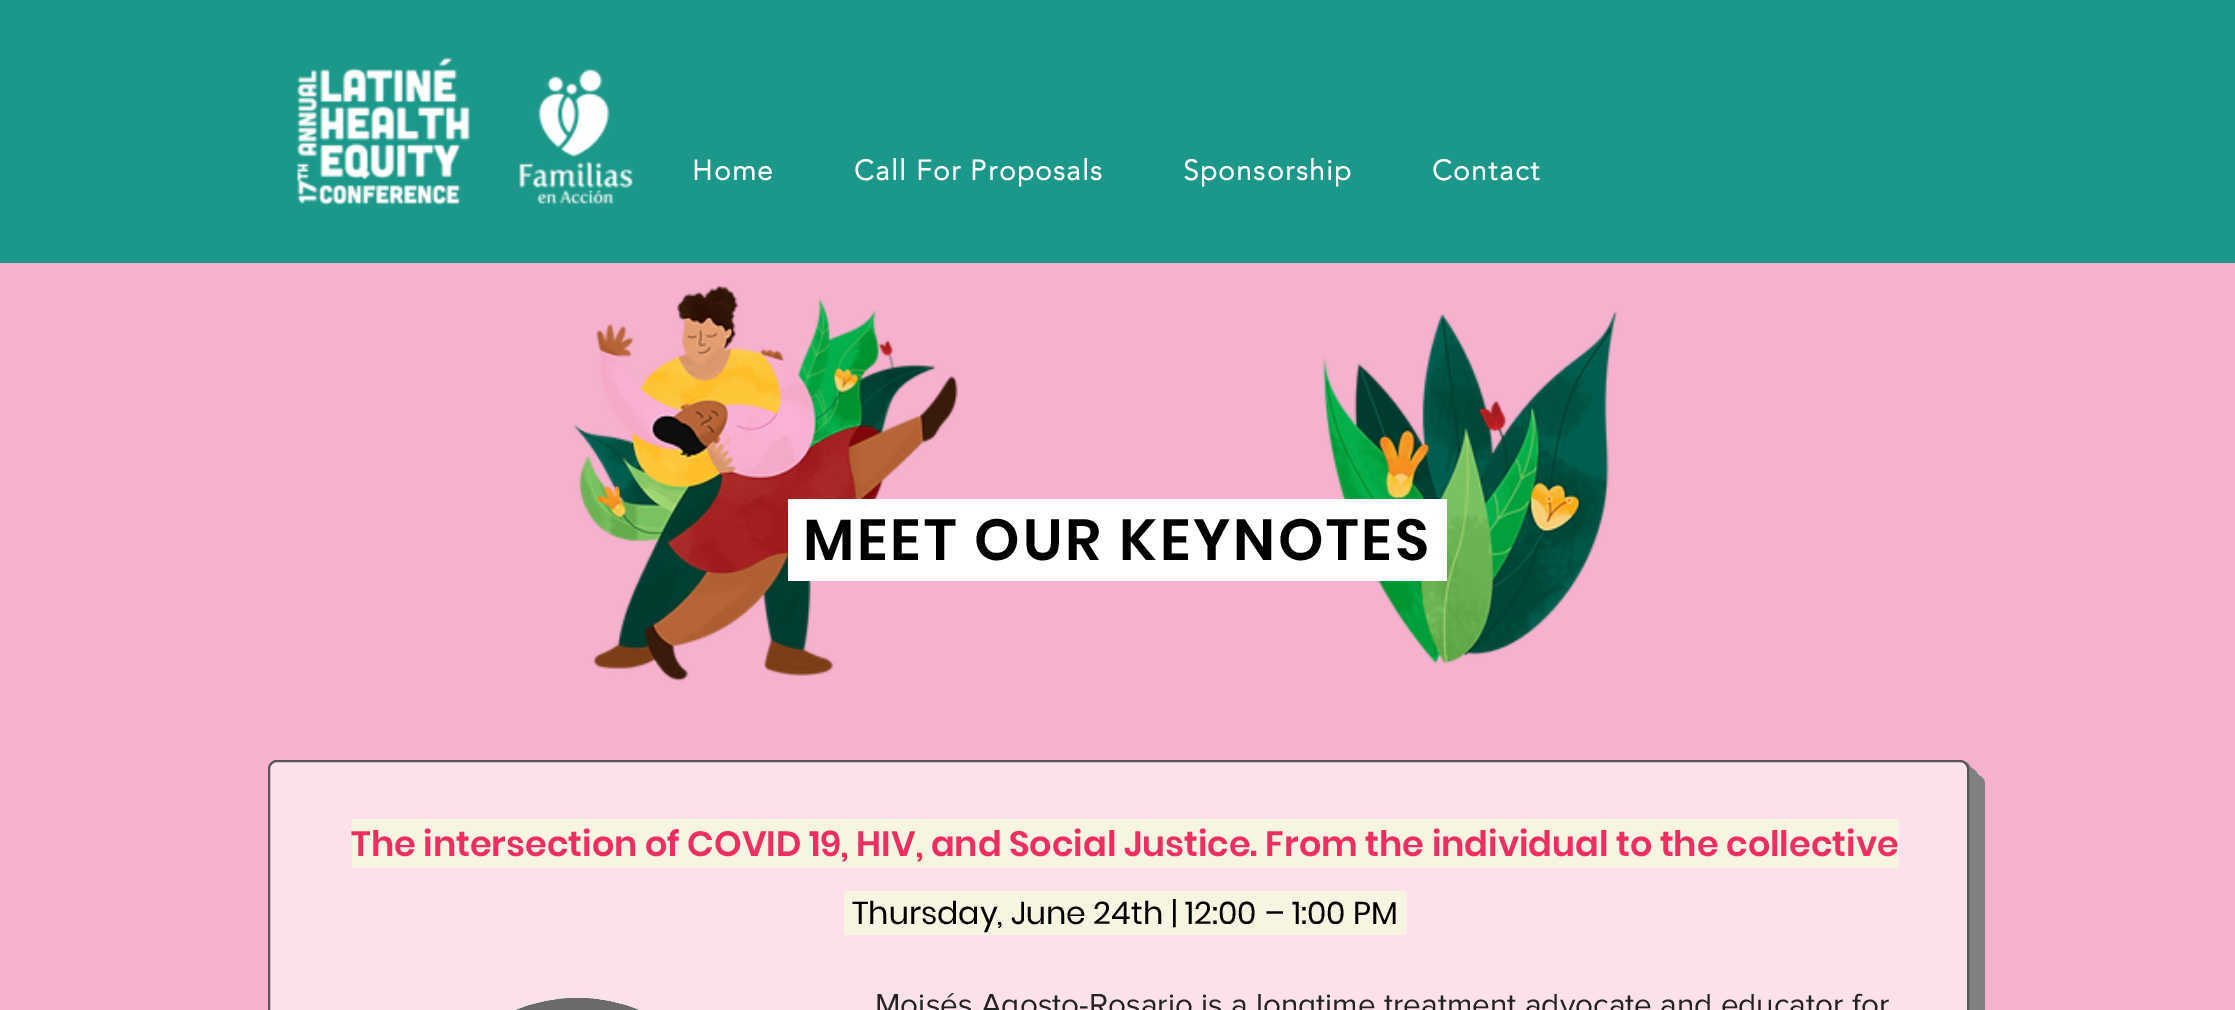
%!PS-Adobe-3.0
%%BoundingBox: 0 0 2235 1010
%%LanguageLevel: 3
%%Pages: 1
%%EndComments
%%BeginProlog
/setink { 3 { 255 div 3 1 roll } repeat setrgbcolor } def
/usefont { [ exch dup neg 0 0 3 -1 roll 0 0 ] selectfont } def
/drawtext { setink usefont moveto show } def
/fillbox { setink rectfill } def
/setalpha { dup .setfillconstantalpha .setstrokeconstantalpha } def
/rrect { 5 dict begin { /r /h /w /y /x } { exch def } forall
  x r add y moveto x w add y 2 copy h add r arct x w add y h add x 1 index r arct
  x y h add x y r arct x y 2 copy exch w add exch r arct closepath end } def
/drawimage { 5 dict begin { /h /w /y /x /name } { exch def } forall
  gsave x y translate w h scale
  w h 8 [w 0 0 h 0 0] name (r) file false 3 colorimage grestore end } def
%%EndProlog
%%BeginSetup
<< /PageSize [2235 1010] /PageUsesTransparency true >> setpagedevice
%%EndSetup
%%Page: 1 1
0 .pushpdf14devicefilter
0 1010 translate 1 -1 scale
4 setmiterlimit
0 0 2235 1010 246 177 207 fillbox
0 0 2235 263 27 152 138 fillbox
(assets/img1.rgb) 297 57 173 148 drawimage
(assets/img2.rgb) 519 69 114 136 drawimage
/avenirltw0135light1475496-Bold 28 usefont
255 255 255 setink
692 180 moveto 1.4 0 (Home) ashow
854 180 moveto 1.4 0 (Call For Proposals) ashow
1183 180 moveto 1.4 0 (Sponsorship) ashow
1432 180 moveto 1.4 0 (Contact) ashow
(assets/img3.rgb) 573 285 385 396 drawimage
(assets/img4.rgb) 1322 311 296 353 drawimage
788 499 659 82 255 255 255 fillbox
/Poppins-SemiBold 57.75 usefont
0 0 0 setink
803 560 moveto 2.9 0 (MEET OUR KEYNOTES) ashow
128 128 128 setink
284 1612 moveto 284 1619 lineto 284 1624 288 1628 293 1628 curveto 1976 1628 lineto 1981 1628 1985 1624 1985 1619 curveto 1985 784 lineto 1985 779 1981 775 1976 775 curveto 1969 775 lineto 1969 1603 lineto 1969 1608 1965 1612 1960 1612 curveto closepath fill
280 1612 moveto 280 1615 lineto 280 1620 284 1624 289 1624 curveto 1972 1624 lineto 1977 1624 1981 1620 1981 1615 curveto 1981 781 lineto 1981 776 1977 772 1972 772 curveto 1969 772 lineto 1969 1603 lineto 1969 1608 1965 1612 1960 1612 curveto closepath fill
277 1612 moveto 277 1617 281 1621 286 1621 curveto 1969 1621 lineto 1974 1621 1978 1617 1978 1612 curveto 1978 777 lineto 1978 772 1974 768 1969 768 curveto 1969 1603 lineto 1969 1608 1965 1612 1960 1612 curveto closepath fill
274 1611 moveto 275 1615 278 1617 282 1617 curveto 1965 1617 lineto 1970 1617 1974 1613 1974 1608 curveto 1974 774 lineto 1974 770 1972 767 1968 766 curveto 1969 768 lineto 1969 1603 lineto 1969 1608 1965 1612 1960 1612 curveto 276 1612 lineto closepath fill
272 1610 moveto 273 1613 276 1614 279 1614 curveto 1962 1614 lineto 1967 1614 1971 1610 1971 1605 curveto 1971 770 lineto 1971 767 1969 763 1966 762 curveto 1968 764 1969 766 1969 768 curveto 1969 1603 lineto 1969 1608 1965 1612 1960 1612 curveto 276 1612 lineto 275 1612 273 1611 272 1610 curveto closepath fill
0.61 setalpha
255 255 255 setink
269 761 1699 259 8 rrect fill
1 setalpha
85 85 85 setink
2 setlinewidth
269 761 1699 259 8 rrect stroke
352 819 1547 49 247 245 225 fillbox
(The intersection of COVID 19, HIV, and Social Justice. From the individual to the collective) 351 856 /Poppins-SemiBold 35 238 46 94 drawtext
844 891 563 44 247 245 225 fillbox
(Thursday, June 24th | 12:00 – 1:00 PM) 852 924 /Poppins-Regular 31.5 0 0 0 drawtext
255 255 255 setink
413 998 329 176 163.5 rrect fill
(assets/img5.rgb) 515 997 125 13 drawimage
(Moisés Agosto-Rosario is a longtime treatment advocate and educator for) 875 1015 /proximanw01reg-Regular 31.5 36 35 35 drawtext
.poppdf14devicefilter showpage
%%EOF
